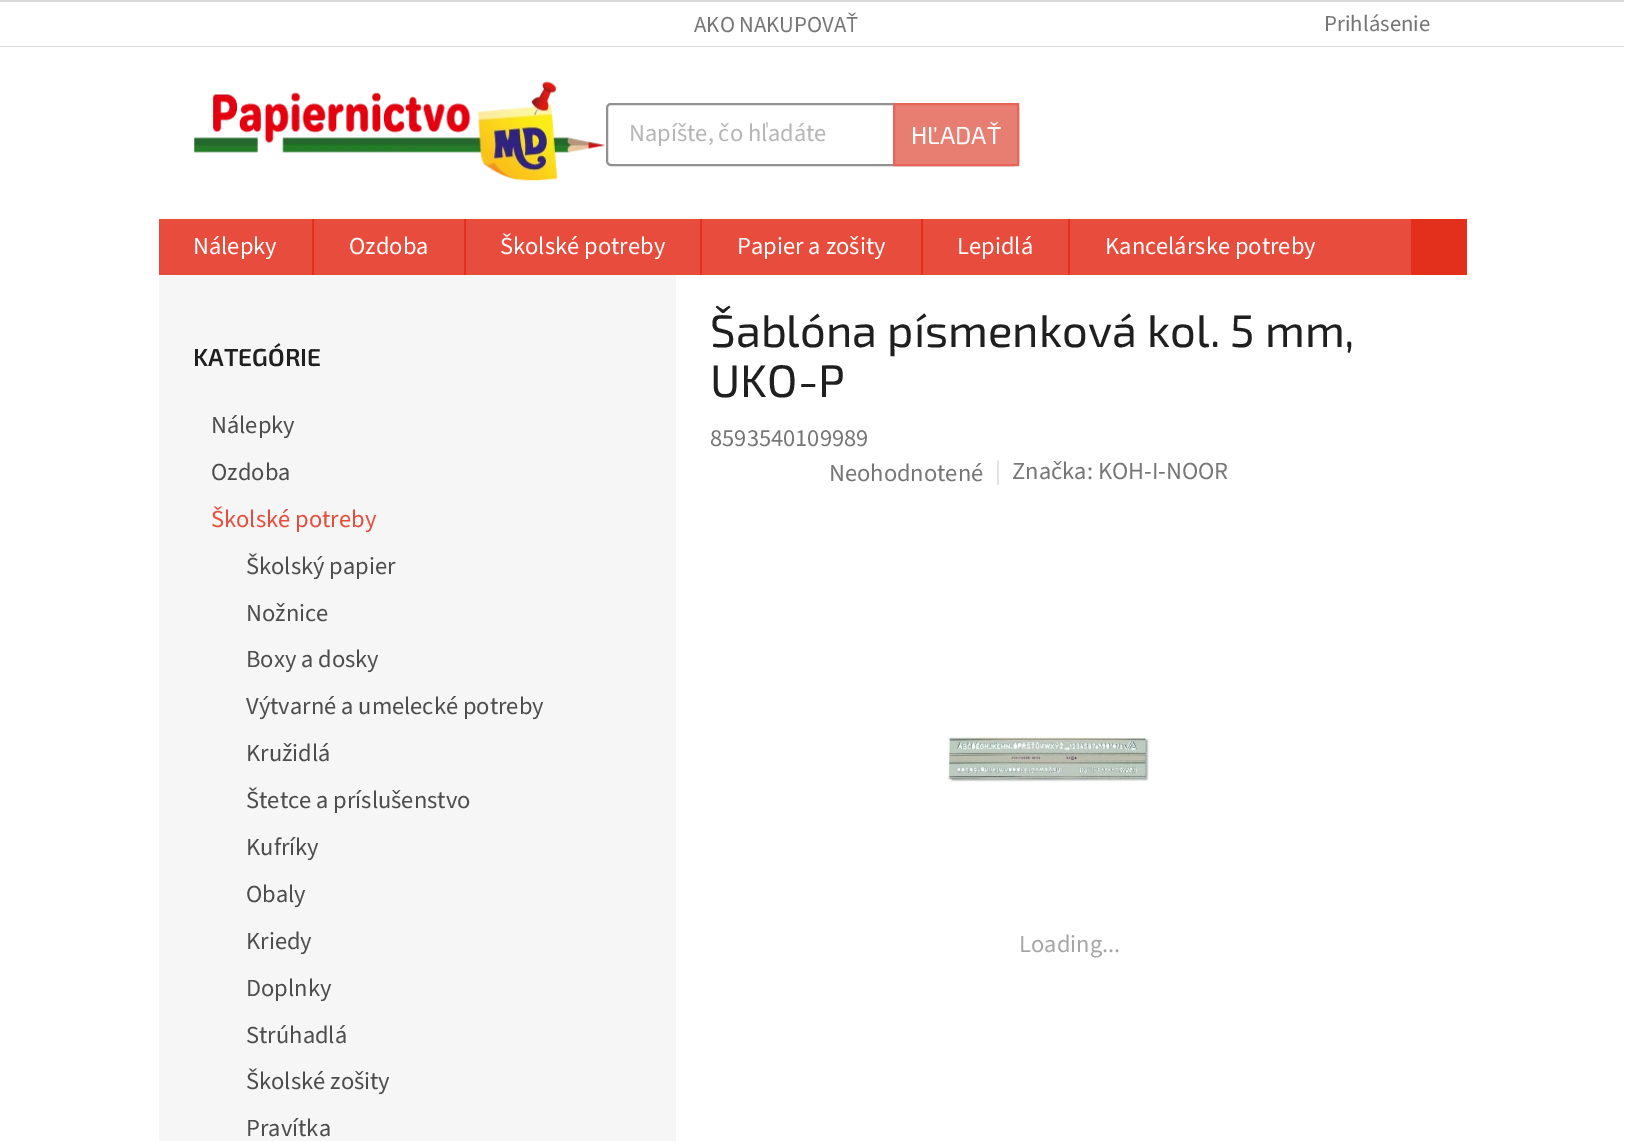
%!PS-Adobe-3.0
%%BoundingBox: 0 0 1649 1141
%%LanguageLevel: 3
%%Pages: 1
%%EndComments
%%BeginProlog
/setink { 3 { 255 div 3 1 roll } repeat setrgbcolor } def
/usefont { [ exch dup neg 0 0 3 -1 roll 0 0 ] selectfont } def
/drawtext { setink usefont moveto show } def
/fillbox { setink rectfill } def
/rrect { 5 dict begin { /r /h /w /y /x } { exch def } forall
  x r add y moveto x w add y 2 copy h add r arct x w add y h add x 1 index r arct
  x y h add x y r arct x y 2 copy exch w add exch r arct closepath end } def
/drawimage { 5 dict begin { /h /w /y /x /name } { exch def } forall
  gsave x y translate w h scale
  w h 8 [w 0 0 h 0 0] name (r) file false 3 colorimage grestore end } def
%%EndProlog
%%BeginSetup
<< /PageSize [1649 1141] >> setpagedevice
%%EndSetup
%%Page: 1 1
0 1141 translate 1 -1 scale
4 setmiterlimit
0 0 1649 1141 255 255 255 fillbox
0 0 1624 2 218 218 218 fillbox
0 46 1624 1 218 218 218 fillbox
(AKO NAKUPOVAŤ) 694 32 /SourceSans3-Regular 22.75 118 118 118 drawtext
(Prihlásenie) 1324 31 /SourceSans3-Regular 22.75 118 118 118 drawtext
(assets/img1.rgb) 194 81 411 100 drawimage
145 145 145 setink
2 setlinewidth
607 104 411 61 4 rrect stroke
(Napíšte, čo hľadáte) 629 141 /SourceSans3-Regular 24.5 182 182 182 drawtext
232 126 114 setink
894 104 moveto 1018 104 lineto 1018 165 lineto 894 165 lineto closepath gsave fill grestore
232 100 86 setink
stroke
(HĽADAŤ) 911 144 /Exo2-Regular 24.5 255 255 255 drawtext
159 219 1252 56 231 76 60 fillbox
(Nálepky) 193 254 /SourceSans3-Regular 24.5 255 255 255 drawtext
312 219 2 56 227 48 28 fillbox
(Ozdoba) 349 254 /SourceSans3-Regular 24.5 255 255 255 drawtext
464 219 2 56 227 48 28 fillbox
(Školské potreby) 500 254 /SourceSans3-Regular 24.5 255 255 255 drawtext
700 219 2 56 227 48 28 fillbox
(Papier a zošity) 737 254 /SourceSans3-Regular 24.5 255 255 255 drawtext
921 219 2 56 227 48 28 fillbox
(Lepidlá) 957 254 /SourceSans3-Regular 24.5 255 255 255 drawtext
1068 219 2 56 227 48 28 fillbox
(Kancelárske potreby) 1105 254 /SourceSans3-Regular 24.5 255 255 255 drawtext
1411 219 56 56 227 48 28 fillbox
159 275 517 866 246 246 246 fillbox
(KATEGÓRIE) 193 366 /Exo2-SemiBold 24.5 31 31 31 drawtext
(Nálepky) 211 433 /SourceSans3-Regular 24.5 77 77 77 drawtext
(Ozdoba) 211 480 /SourceSans3-Regular 24.5 77 77 77 drawtext
(Školské potreby) 211 527 /SourceSans3-Regular 24.5 231 76 60 drawtext
(Školský papier) 246 574 /SourceSans3-Regular 24.5 77 77 77 drawtext
(Nožnice) 246 621 /SourceSans3-Regular 24.5 77 77 77 drawtext
(Boxy a dosky) 246 667 /SourceSans3-Regular 24.5 77 77 77 drawtext
(Výtvarné a umelecké potreby) 246 714 /SourceSans3-Regular 24.5 77 77 77 drawtext
(Kružidlá) 246 761 /SourceSans3-Regular 24.5 77 77 77 drawtext
(Štetce a príslušenstvo) 246 808 /SourceSans3-Regular 24.5 77 77 77 drawtext
(Kufríky) 246 855 /SourceSans3-Regular 24.5 77 77 77 drawtext
(Obaly) 246 902 /SourceSans3-Regular 24.5 77 77 77 drawtext
(Kriedy) 246 949 /SourceSans3-Regular 24.5 77 77 77 drawtext
(Doplnky) 246 996 /SourceSans3-Regular 24.5 77 77 77 drawtext
(Strúhadlá) 246 1043 /SourceSans3-Regular 24.5 77 77 77 drawtext
(Školské zošity) 246 1089 /SourceSans3-Regular 24.5 77 77 77 drawtext
(Pravítka) 246 1136 /SourceSans3-Regular 24.5 77 77 77 drawtext
(Šablóna písmenková kol. 5 mm,) 710 347 /Exo2-Regular 45.5 31 31 31 drawtext
(UKO-P) 710 397 /Exo2-Regular 45.5 31 31 31 drawtext
(8593540109989) 710 446 /SourceSans3-Regular 24.5 118 118 118 drawtext
(Neohodnotené) 829 481 /SourceSans3-Regular 24.5 118 118 118 drawtext
(|) 995 479 /SourceSans3-Regular 24.5 218 218 218 drawtext
(Značka: KOH-I-NOOR) 1012 479 /SourceSans3-Regular 24.5 118 118 118 drawtext
(assets/img2.rgb) 947 737 203 45 drawimage
(Loading...) 1019 952 /SourceSans3-Regular 24.5 166 166 166 drawtext
showpage
%%EOF
